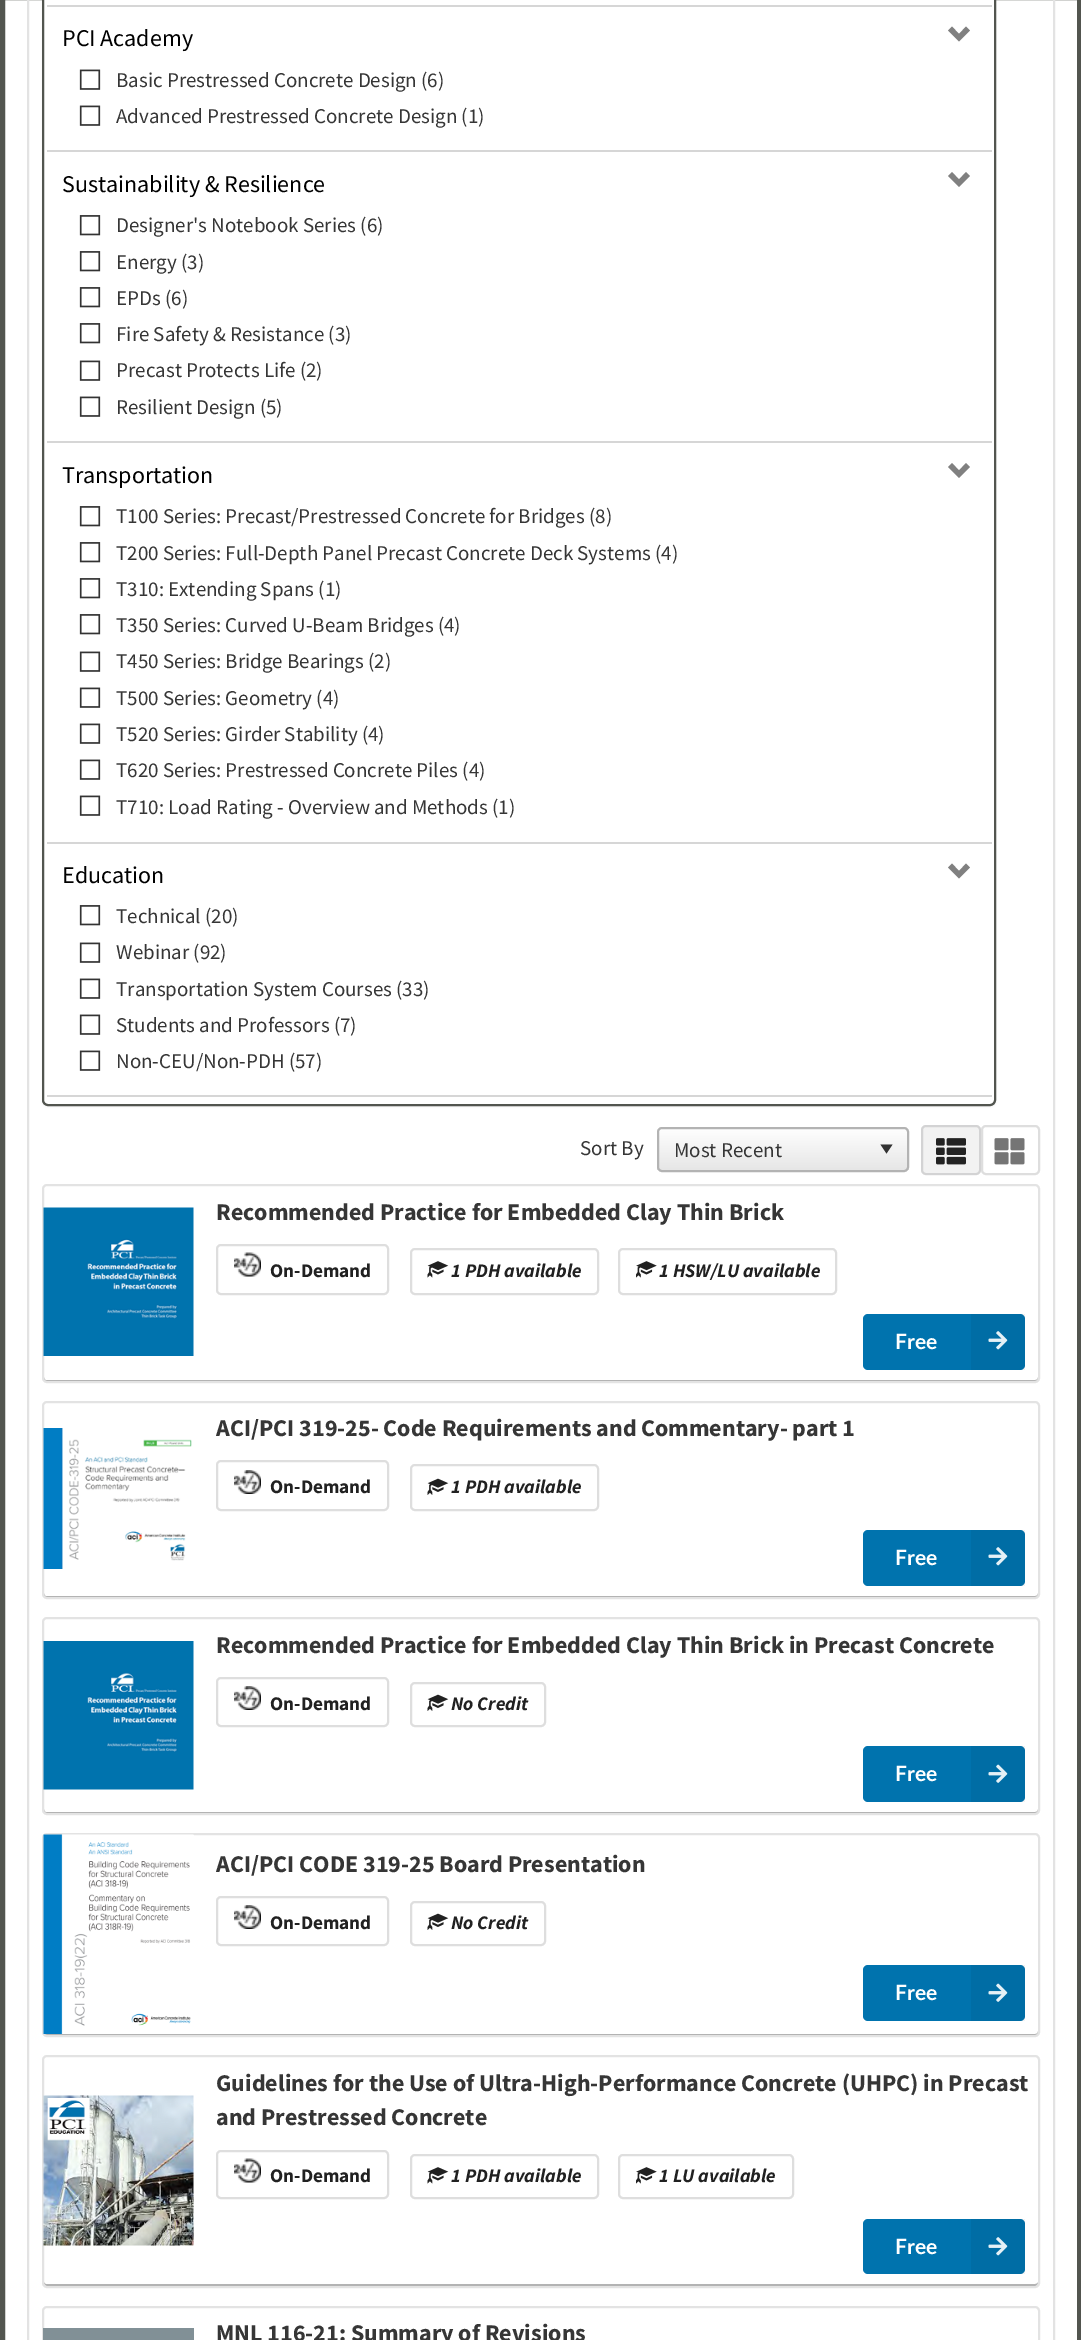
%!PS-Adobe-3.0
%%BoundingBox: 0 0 1081 2340
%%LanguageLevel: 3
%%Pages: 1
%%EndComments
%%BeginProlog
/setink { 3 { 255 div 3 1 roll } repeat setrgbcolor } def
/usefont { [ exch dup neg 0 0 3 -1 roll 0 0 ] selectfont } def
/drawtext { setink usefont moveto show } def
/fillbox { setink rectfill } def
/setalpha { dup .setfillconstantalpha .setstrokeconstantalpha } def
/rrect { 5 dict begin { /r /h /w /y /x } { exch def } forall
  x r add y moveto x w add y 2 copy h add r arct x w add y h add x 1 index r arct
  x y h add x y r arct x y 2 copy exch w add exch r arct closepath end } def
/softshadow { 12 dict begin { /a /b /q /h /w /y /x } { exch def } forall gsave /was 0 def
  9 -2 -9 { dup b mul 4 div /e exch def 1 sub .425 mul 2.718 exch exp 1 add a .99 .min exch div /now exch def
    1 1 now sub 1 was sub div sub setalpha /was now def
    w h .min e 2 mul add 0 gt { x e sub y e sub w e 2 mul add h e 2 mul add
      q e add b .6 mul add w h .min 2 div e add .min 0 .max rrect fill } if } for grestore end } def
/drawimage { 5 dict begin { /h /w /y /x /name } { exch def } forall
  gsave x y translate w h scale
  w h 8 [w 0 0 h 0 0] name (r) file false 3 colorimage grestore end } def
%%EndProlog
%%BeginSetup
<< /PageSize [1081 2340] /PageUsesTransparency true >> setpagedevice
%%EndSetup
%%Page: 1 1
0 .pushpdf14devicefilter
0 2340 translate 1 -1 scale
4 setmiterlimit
0 0 1081 2340 255 255 255 fillbox
82 85 79 setink
5 setlinewidth
2.5 -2.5 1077 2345 rectstroke
227 227 227 setink
2 setlinewidth
28 -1 1026 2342 rectstroke
0 0 0 setink
42 -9 954 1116 6 1 0.05 softshadow
255 255 255 setink
43 -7 952 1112 5 rrect gsave fill grestore
82 85 79 setink
stroke
47 5 945 2 214 214 214 fillbox
47 150 945 2 214 214 214 fillbox
(PCI Academy) 62 46 /SourceSansPro-Regular 24 0 0 0 drawtext
128 128 128 setink
970 30.5 moveto 959 41.5 lineto 948 30.5 lineto 952 26.5 lineto 959 34 lineto 966 26.5 lineto closepath fill
(assets/img1.rgb) 79 69 22 21 drawimage
(Basic Prestressed Concrete Design \(6\)) 116 87 /SourceSansPro-Regular 21 54 54 54 drawtext
(assets/img1.rgb) 79 105 22 21 drawimage
(Advanced Prestressed Concrete Design \(1\)) 116 123 /SourceSansPro-Regular 21 54 54 54 drawtext
47 441 945 2 214 214 214 fillbox
(Sustainability & Resilience) 62 192 /SourceSansPro-Regular 24 0 0 0 drawtext
128 128 128 setink
970 176 moveto 959 187 lineto 948 176 lineto 952 172 lineto 959 179.5 lineto 966 172 lineto closepath fill
(assets/img2.rgb) 79 215 22 21 drawimage
(Designer's Notebook Series \(6\)) 116 232 /SourceSansPro-Regular 21 54 54 54 drawtext
(assets/img2.rgb) 79 251 22 21 drawimage
(Energy \(3\)) 116 269 /SourceSansPro-Regular 21 54 54 54 drawtext
(assets/img2.rgb) 79 287 22 21 drawimage
(EPDs \(6\)) 116 305 /SourceSansPro-Regular 21 54 54 54 drawtext
(assets/img2.rgb) 79 323 22 21 drawimage
(Fire Safety & Resistance \(3\)) 116 341 /SourceSansPro-Regular 21 54 54 54 drawtext
(assets/img1.rgb) 79 360 22 21 drawimage
(Precast Protects Life \(2\)) 116 377 /SourceSansPro-Regular 21 54 54 54 drawtext
(assets/img1.rgb) 79 396 22 21 drawimage
(Resilient Design \(5\)) 116 414 /SourceSansPro-Regular 21 54 54 54 drawtext
47 842 945 2 214 214 214 fillbox
(Transportation) 62 483 /SourceSansPro-Regular 24 0 0 0 drawtext
128 128 128 setink
970 467 moveto 959 478 lineto 948 467 lineto 952 463 lineto 959 470.5 lineto 966 463 lineto closepath fill
(assets/img2.rgb) 79 506 22 21 drawimage
(T100 Series: Precast/Prestressed Concrete for Bridges \(8\)) 116 523 /SourceSansPro-Regular 21 54 54 54 drawtext
(assets/img2.rgb) 79 542 22 21 drawimage
(T200 Series: Full-Depth Panel Precast Concrete Deck Systems \(4\)) 116 560 /SourceSansPro-Regular 21 54 54 54 drawtext
(assets/img2.rgb) 79 578 22 21 drawimage
(T310: Extending Spans \(1\)) 116 596 /SourceSansPro-Regular 21 54 54 54 drawtext
(assets/img2.rgb) 79 614 22 21 drawimage
(T350 Series: Curved U-Beam Bridges \(4\)) 116 632 /SourceSansPro-Regular 21 54 54 54 drawtext
(assets/img1.rgb) 79 651 22 21 drawimage
(T450 Series: Bridge Bearings \(2\)) 116 668 /SourceSansPro-Regular 21 54 54 54 drawtext
(assets/img1.rgb) 79 687 22 21 drawimage
(T500 Series: Geometry \(4\)) 116 705 /SourceSansPro-Regular 21 54 54 54 drawtext
(assets/img1.rgb) 79 723 22 21 drawimage
(T520 Series: Girder Stability \(4\)) 116 741 /SourceSansPro-Regular 21 54 54 54 drawtext
(assets/img1.rgb) 79 759 22 21 drawimage
(T620 Series: Prestressed Concrete Piles \(4\)) 116 777 /SourceSansPro-Regular 21 54 54 54 drawtext
(assets/img1.rgb) 79 795 22 21 drawimage
(T710: Load Rating - Overview and Methods \(1\)) 116 814 /SourceSansPro-Regular 21 54 54 54 drawtext
47 1095 945 2 214 214 214 fillbox
(Education) 62 883 /SourceSansPro-Regular 24 0 0 0 drawtext
128 128 128 setink
970 867.5 moveto 959 878.5 lineto 948 867.5 lineto 952 863.5 lineto 959 871 lineto 966 863.5 lineto closepath fill
(assets/img2.rgb) 79 905 22 21 drawimage
(Technical \(20\)) 116 923 /SourceSansPro-Regular 21 54 54 54 drawtext
(assets/img1.rgb) 79 942 22 21 drawimage
(Webinar \(92\)) 116 959 /SourceSansPro-Regular 21 54 54 54 drawtext
(assets/img1.rgb) 79 978 22 21 drawimage
(Transportation System Courses \(33\)) 116 996 /SourceSansPro-Regular 21 54 54 54 drawtext
(assets/img1.rgb) 79 1014 22 21 drawimage
(Students and Professors \(7\)) 116 1032 /SourceSansPro-Regular 21 54 54 54 drawtext
(assets/img1.rgb) 79 1050 22 21 drawimage
(Non-CEU/Non-PDH \(57\)) 116 1068 /SourceSansPro-Regular 21 54 54 54 drawtext
(Sort By) 580 1155 /SourceSansPro-Regular 21 54 54 54 drawtext
gsave
657 1127 252 45 5 rrect clip newpath
gsave 657 1128 moveto 909 1128 lineto 909 1170 lineto 657 1170 lineto closepath clip newpath
<< /ShadingType 2 /ColorSpace /DeviceRGB /Coords [783 1128 783 1170] /Extend [true true] /Function << /FunctionType 2 /Domain [0 1] /C0 [1 1 1] /C1 [0.902 0.902 0.902] /N 1 >> >> shfill grestore
grestore
179 179 179 setink
658 1128 250 43 4 rrect stroke
(Most Recent) 674 1157 /SourceSansPro-Regular 21 54 54 54 drawtext
51 51 51 setink
886.5 1153.5 moveto 880.5 1144.5 lineto 892.5 1144.5 lineto closepath fill
242 242 242 setink
921 1125 60 50 5 rrect fill
0.15 setalpha
34 36 38 setink
922 1126 58 48 4 rrect stroke
1 setalpha
(assets/img3.rgb) 936 1138 30 27 drawimage
222 222 222 setink
982 1126 57 48 4 rrect stroke
(assets/img4.rgb) 994 1138 31 27 drawimage
179 179 179 setink
44 1377 moveto 44 1379 lineto 44 1381 45 1382 47 1382 curveto 1035 1382 lineto 1037 1382 1038 1381 1038 1379 curveto 1038 1377 lineto 1038 1379 1037 1380 1035 1380 curveto 46 1380 lineto 45 1380 44 1379 44 1377 curveto closepath fill
227 227 227 setink
43 1185 996 197 4 rrect stroke
(assets/img5.rgb) 43 1207 151 149 drawimage
(Recommended Practice for Embedded Clay Thin Brick) 216 1220 /SourceSansPro-Bold 24 54 54 54 drawtext
222 222 222 setink
217 1245 171 49 4 rrect stroke
(assets/img6.rgb) 234 1252 27 25 drawimage
(On-Demand) 270 1277 /SourceSansPro-Bold 19.25 33 33 33 drawtext
222 222 222 setink
411 1249 187 45 4 rrect stroke
(assets/img7.rgb) 427 1261 22 17 drawimage
(1 PDH available) 451 1277 /SourceSansPro-BoldItalic 19.25 33 33 33 drawtext
222 222 222 setink
619 1249 217 45 4 rrect stroke
(assets/img8.rgb) 636 1261 21 17 drawimage
(1 HSW/LU available) 659 1277 /SourceSansPro-BoldItalic 19.25 33 33 33 drawtext
0 115 174 setink
863 1314 162 56 5 rrect fill
(Free) 895 1349 /Lato-Bold 21 255 255 255 drawtext
0.05 setalpha
971 1314 54 56 0 0 0 fillbox
1 setalpha
(assets/img9.rgb) 988 1331 20 19 drawimage
179 179 179 setink
44 1593 moveto 44 1595 lineto 44 1597 45 1598 47 1598 curveto 1035 1598 lineto 1037 1598 1038 1597 1038 1595 curveto 1038 1593 lineto 1038 1595 1037 1596 1035 1596 curveto 46 1596 lineto 45 1596 44 1595 44 1593 curveto closepath fill
227 227 227 setink
43 1402 996 196 4 rrect stroke
(assets/img10.rgb) 43 1428 149 141 drawimage
(ACI/PCI 319-25- Code Requirements and Commentary- part 1) 216 1436 /SourceSansPro-Bold 24 54 54 54 drawtext
222 222 222 setink
217 1461 171 49 4 rrect stroke
(assets/img11.rgb) 234 1470 27 24 drawimage
(On-Demand) 270 1493 /SourceSansPro-Bold 19.25 33 33 33 drawtext
222 222 222 setink
411 1465 187 45 4 rrect stroke
(assets/img12.rgb) 427 1478 22 17 drawimage
(1 PDH available) 451 1493 /SourceSansPro-BoldItalic 19.25 33 33 33 drawtext
0 115 174 setink
863 1530 162 56 5 rrect fill
(Free) 895 1565 /Lato-Bold 21 255 255 255 drawtext
0.05 setalpha
971 1530 54 56 0 0 0 fillbox
1 setalpha
(assets/img9.rgb) 988 1547 20 19 drawimage
179 179 179 setink
44 1809 moveto 44 1811 lineto 44 1813 45 1814 47 1814 curveto 1035 1814 lineto 1037 1814 1038 1813 1038 1811 curveto 1038 1809 lineto 1038 1811 1037 1812 1035 1812 curveto 46 1812 lineto 45 1812 44 1811 44 1809 curveto closepath fill
227 227 227 setink
43 1618 996 196 4 rrect stroke
(assets/img13.rgb) 43 1641 151 149 drawimage
(Recommended Practice for Embedded Clay Thin Brick in Precast Concrete) 216 1653 /SourceSansPro-Bold 24 54 54 54 drawtext
222 222 222 setink
217 1678 171 48 4 rrect stroke
(assets/img11.rgb) 234 1686 27 24 drawimage
(On-Demand) 270 1710 /SourceSansPro-Bold 19.25 33 33 33 drawtext
222 222 222 setink
411 1683 134 43 4 rrect stroke
(assets/img12.rgb) 427 1694 22 17 drawimage
(No Credit) 451 1710 /SourceSansPro-BoldItalic 19.25 33 33 33 drawtext
0 115 174 setink
863 1746 162 56 5 rrect fill
(Free) 895 1781 /Lato-Bold 21 255 255 255 drawtext
0.05 setalpha
971 1746 54 56 0 0 0 fillbox
1 setalpha
(assets/img14.rgb) 988 1764 20 19 drawimage
179 179 179 setink
44 2031 moveto 44 2033 lineto 44 2035 45 2036 47 2036 curveto 1035 2036 lineto 1037 2036 1038 2035 1038 2033 curveto 1038 2031 lineto 1038 2033 1037 2034 1035 2034 curveto 46 2034 lineto 45 2034 44 2033 44 2031 curveto closepath fill
227 227 227 setink
43 1834 996 202 4 rrect stroke
(assets/img15.rgb) 43 1834 151 200 drawimage
(ACI/PCI CODE 319-25 Board Presentation) 216 1872 /SourceSansPro-Bold 24 54 54 54 drawtext
222 222 222 setink
217 1897 171 48 4 rrect stroke
(assets/img11.rgb) 234 1905 27 24 drawimage
(On-Demand) 270 1929 /SourceSansPro-Bold 19.25 33 33 33 drawtext
222 222 222 setink
411 1902 134 43 4 rrect stroke
(assets/img12.rgb) 427 1913 22 17 drawimage
(No Credit) 451 1929 /SourceSansPro-BoldItalic 19.25 33 33 33 drawtext
0 115 174 setink
863 1965 162 56 5 rrect fill
(Free) 895 2000 /Lato-Bold 21 255 255 255 drawtext
0.05 setalpha
971 1965 54 56 0 0 0 fillbox
1 setalpha
(assets/img14.rgb) 988 1983 20 19 drawimage
179 179 179 setink
44 2282 moveto 44 2284 45 2286 47 2286 curveto 1035 2286 lineto 1037 2286 1038 2284 1038 2282 curveto 1038 2283 1037 2284 1035 2284 curveto 46 2284 lineto 45 2284 44 2283 44 2282 curveto closepath fill
227 227 227 setink
43 2056 996 231 4 rrect stroke
(assets/img16.rgb) 43 2095 151 151 drawimage
(Guidelines for the Use of Ultra-High-Performance Concrete \(UHPC\) in Precast) 216 2091 /SourceSansPro-Bold 24 54 54 54 drawtext
(and Prestressed Concrete) 216 2125 /SourceSansPro-Bold 24 54 54 54 drawtext
222 222 222 setink
217 2151 171 47 4 rrect stroke
(assets/img6.rgb) 234 2158 27 25 drawimage
(On-Demand) 270 2182 /SourceSansPro-Bold 19.25 33 33 33 drawtext
222 222 222 setink
411 2155 187 43 4 rrect stroke
(assets/img7.rgb) 427 2167 22 17 drawimage
(1 PDH available) 451 2182 /SourceSansPro-BoldItalic 19.25 33 33 33 drawtext
222 222 222 setink
619 2155 174 43 4 rrect stroke
(assets/img8.rgb) 636 2167 21 17 drawimage
(1 LU available) 659 2182 /SourceSansPro-BoldItalic 19.25 33 33 33 drawtext
0 115 174 setink
863 2219 162 55 5 rrect fill
(Free) 895 2254 /Lato-Bold 21 255 255 255 drawtext
0.05 setalpha
971 2219 54 55 0 0 0 fillbox
1 setalpha
(assets/img9.rgb) 988 2237 20 19 drawimage
227 227 227 setink
43 2307 996 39 4 rrect stroke
43 2328 151 12 129 144 150 fillbox
(MNL 116-21: Summary of Revisions) 216 2341 /SourceSansPro-Bold 24 54 54 54 drawtext
.poppdf14devicefilter showpage
%%EOF
